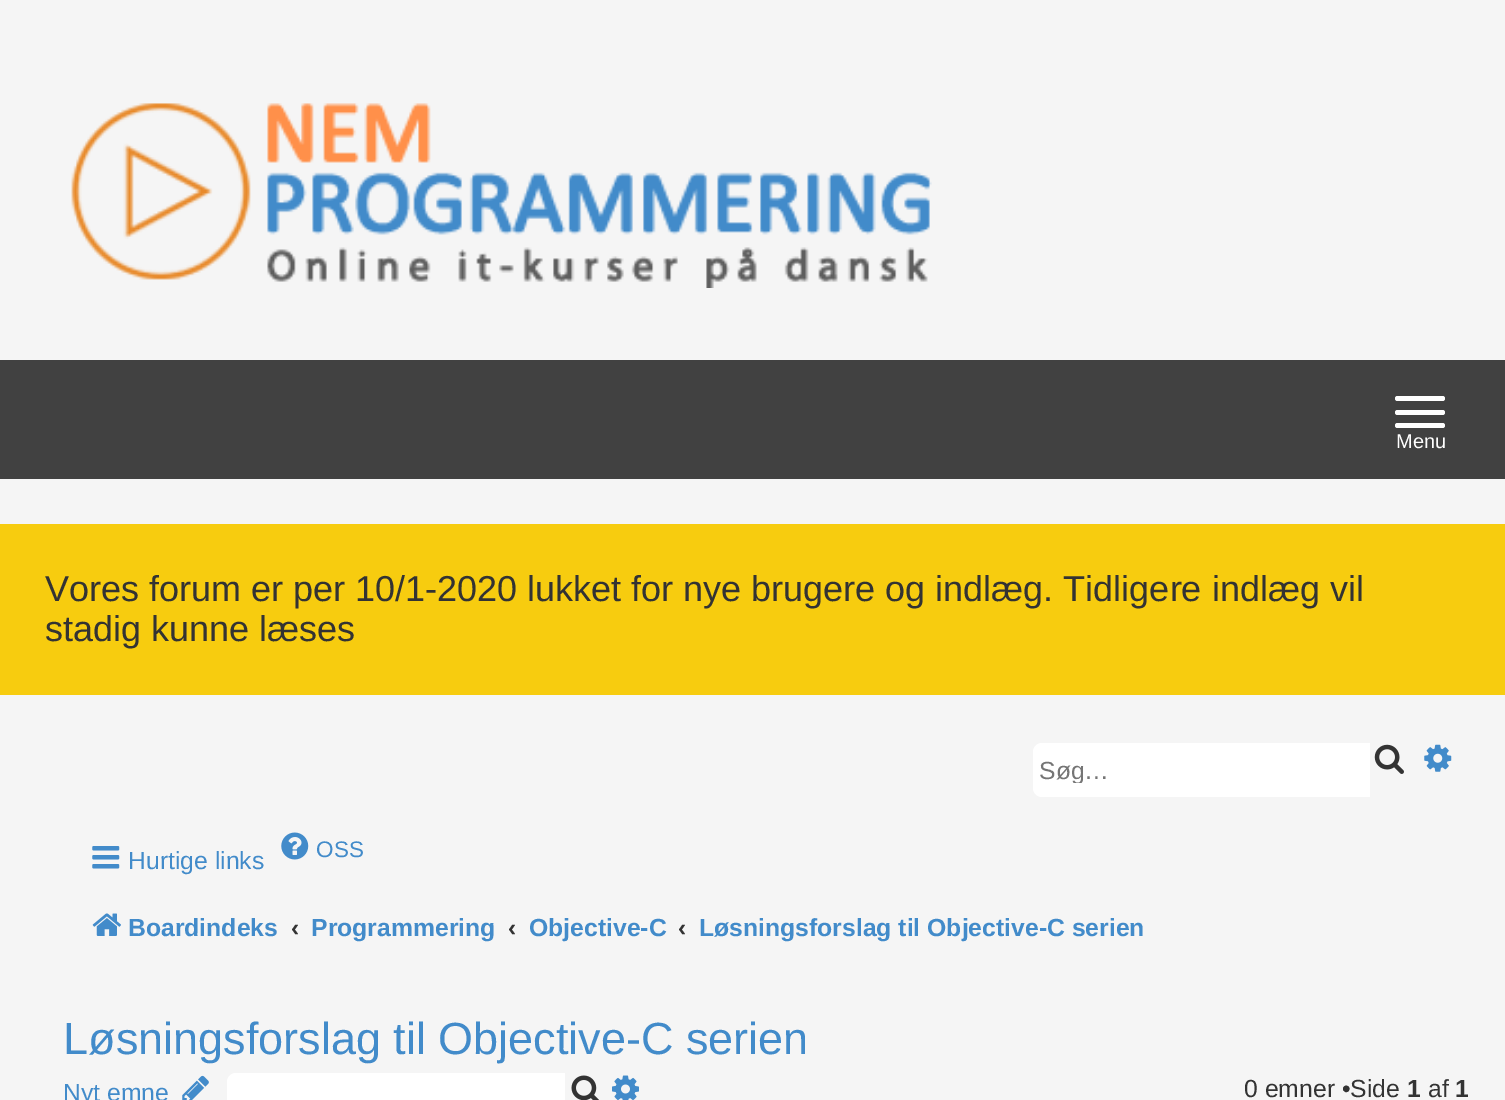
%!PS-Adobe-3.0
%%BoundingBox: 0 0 1505 1100
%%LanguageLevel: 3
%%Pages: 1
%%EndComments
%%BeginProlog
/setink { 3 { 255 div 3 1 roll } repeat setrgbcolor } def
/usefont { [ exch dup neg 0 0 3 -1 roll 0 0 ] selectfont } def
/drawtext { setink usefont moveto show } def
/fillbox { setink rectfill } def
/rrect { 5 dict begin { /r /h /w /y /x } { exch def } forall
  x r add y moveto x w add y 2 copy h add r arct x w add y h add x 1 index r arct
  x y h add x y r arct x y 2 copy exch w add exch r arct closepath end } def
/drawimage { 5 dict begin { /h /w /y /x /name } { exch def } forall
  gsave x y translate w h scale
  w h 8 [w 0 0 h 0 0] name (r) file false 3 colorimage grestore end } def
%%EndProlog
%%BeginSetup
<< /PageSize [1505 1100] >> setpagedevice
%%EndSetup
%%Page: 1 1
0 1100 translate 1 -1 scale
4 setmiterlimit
0 0 1505 1100 245 245 245 fillbox
(assets/img1.rgb) 71 103 861 185 drawimage
0 360 1505 119 65 65 65 fillbox
255 255 255 setink
1395 396 50 5 2.5 rrect fill
1395 410 50 5 2.5 rrect fill
1395 423 50 5 2.5 rrect fill
(Menu) 1396 448 /LiberationSans-Regular 20 255 255 255 drawtext
0 524 1505 171 247 204 15 fillbox
(Vores forum er per 10/1-2020 lukket for nye brugere og indlæg. Tidligere indlæg vil) 45 601 /LiberationSans-Regular 36 51 51 51 drawtext
(stadig kunne læses) 45 641 /LiberationSans-Regular 36 51 51 51 drawtext
255 255 255 setink
1042 743 moveto 1370 743 lineto 1370 797 lineto 1042 797 lineto 1037 797 1033 793 1033 788 curveto 1033 752 lineto 1033 747 1037 743 1042 743 curveto closepath fill
gsave
1040 756 315 27 rectclip
(Søg…) 1039 779 /LiberationSans-Regular 24.75 117 117 117 drawtext
grestore
(assets/img2.rgb) 1374 744 30 30 drawimage
(assets/img3.rgb) 1424 744 28 28 drawimage
(assets/img4.rgb) 92 846 28 23 drawimage
(Hurtige links) 128 869 /LiberationSans-Regular 24.75 66 139 202 drawtext
(assets/img5.rgb) 281 832 28 28 drawimage
(OSS) 316 857 /LiberationSans-Regular 22.5 66 139 202 drawtext
(assets/img6.rgb) 92 913 29 23 drawimage
(Boardindeks) 128 936 /LiberationSans-Bold 24.75 66 139 202 drawtext
(‹) 291 936 /LiberationSans-Bold 24.75 51 51 51 drawtext
(Programmering) 311 936 /LiberationSans-Bold 24.75 66 139 202 drawtext
(‹) 508 936 /LiberationSans-Bold 24.75 51 51 51 drawtext
(Objective-C) 529 936 /LiberationSans-Bold 24.75 66 139 202 drawtext
(‹) 678 936 /LiberationSans-Bold 24.75 51 51 51 drawtext
(Løsningsforslag til Objective-C serien) 699 936 /LiberationSans-Bold 24.75 66 139 202 drawtext
(Løsningsforslag til Objective-C serien) 63 1054 /LiberationSans-Regular 45 66 139 202 drawtext
(Nyt emne) 63 1101 /LiberationSans-Regular 24.75 66 139 202 drawtext
(assets/img7.rgb) 182 1075 27 25 drawimage
255 255 255 setink
236 1073 moveto 565 1073 lineto 565 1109 lineto 236 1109 lineto 231 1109 227 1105 227 1100 curveto 227 1082 lineto 227 1077 231 1073 236 1073 curveto closepath fill
(assets/img8.rgb) 571 1075 28 25 drawimage
(assets/img9.rgb) 612 1075 27 25 drawimage
(0 emner •Side) 1244 1097 /LiberationSans-Regular 24.75 51 51 51 drawtext
(1) 1407 1097 /LiberationSans-Bold 24.75 51 51 51 drawtext
(af) 1428 1097 /LiberationSans-Regular 24.75 51 51 51 drawtext
(1) 1455 1097 /LiberationSans-Bold 24.75 51 51 51 drawtext
showpage
%%EOF
